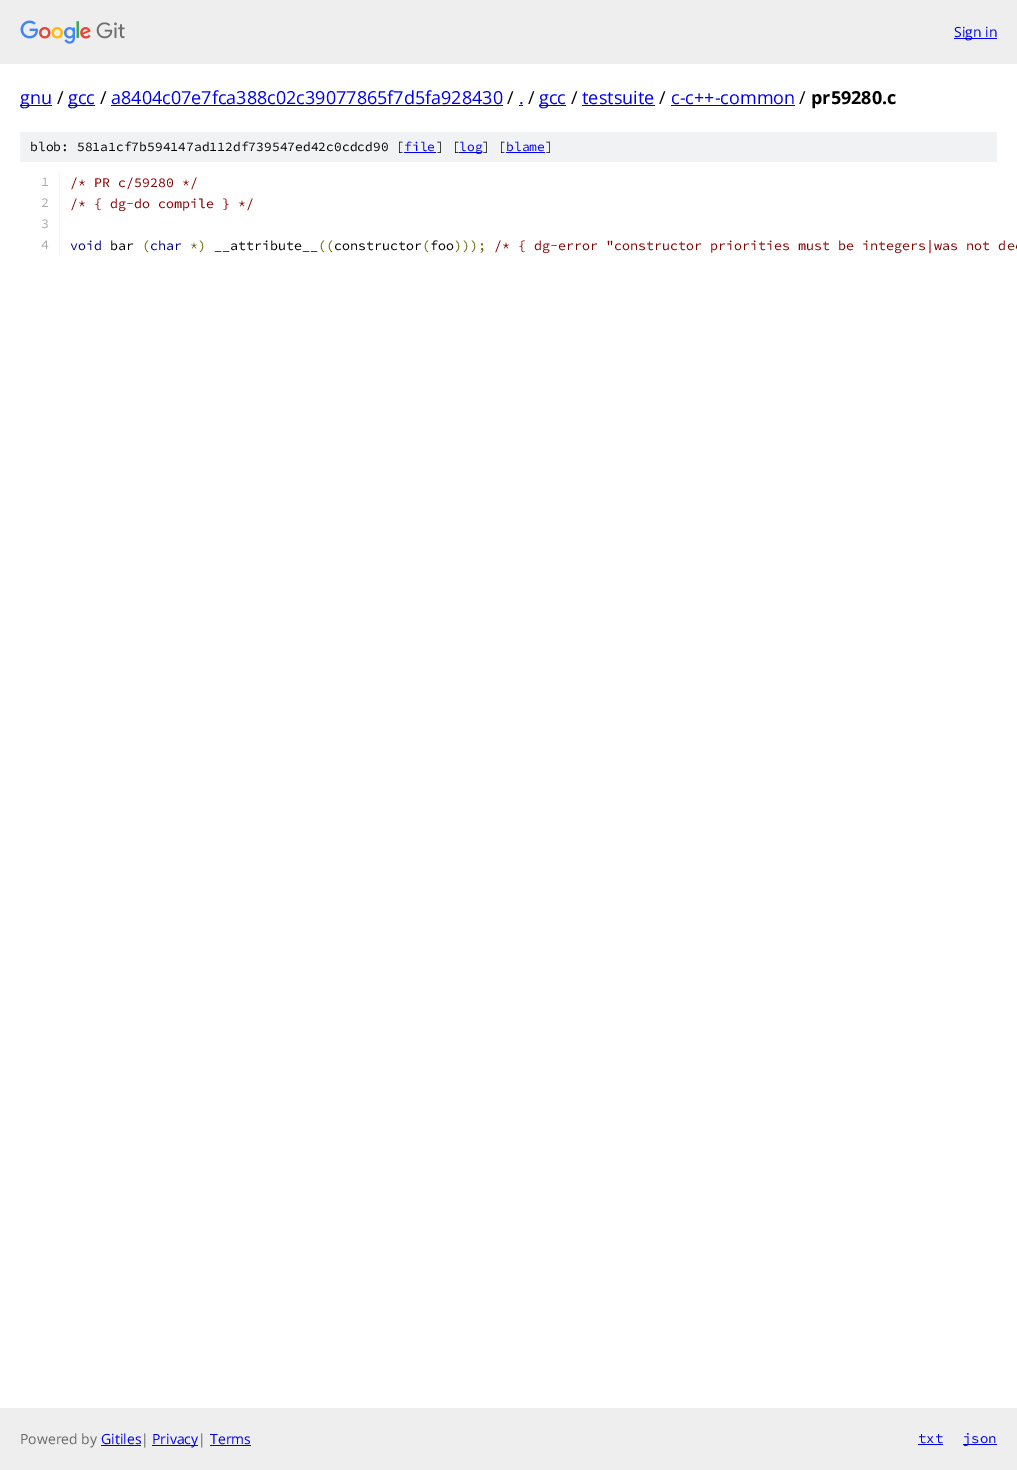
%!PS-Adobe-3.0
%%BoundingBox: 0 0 1017 1470
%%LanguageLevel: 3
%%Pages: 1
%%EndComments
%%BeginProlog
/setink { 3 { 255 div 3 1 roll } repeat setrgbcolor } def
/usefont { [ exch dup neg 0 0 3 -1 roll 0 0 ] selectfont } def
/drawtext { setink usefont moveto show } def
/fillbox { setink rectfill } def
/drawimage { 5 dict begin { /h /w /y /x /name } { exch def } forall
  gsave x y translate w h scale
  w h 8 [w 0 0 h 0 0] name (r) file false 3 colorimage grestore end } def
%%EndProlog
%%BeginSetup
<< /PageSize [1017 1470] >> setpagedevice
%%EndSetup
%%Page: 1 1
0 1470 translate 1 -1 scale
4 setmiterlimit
0 0 1017 1470 255 255 255 fillbox
0 0 1017 64 238 238 238 fillbox
(assets/img1.rgb) 20 20 105 24 drawimage
954 38 43 1 0 0 238 fillbox
(Sign in) 954 37 /OpenSans-Regular 14 0 0 238 drawtext
20 105 32 1 0 0 238 fillbox
(gnu) 20 104 /OpenSans-Regular 18 0 0 238 drawtext
(/) 57 104 /OpenSans-Regular 18 0 0 0 drawtext
68 105 27 1 0 0 238 fillbox
(gcc) 68 104 /OpenSans-Regular 18 0 0 238 drawtext
(/) 100 104 /OpenSans-Regular 18 0 0 0 drawtext
(a8404c07e7fca388c02c39077865f7d5fa928430) 111 104 /OpenSans-Regular 18 0 0 238 drawtext
111 105 392 1 0 0 238 fillbox
(/) 507 104 /OpenSans-Regular 18 0 0 0 drawtext
(.) 519 104 /OpenSans-Regular 18 0 0 238 drawtext
519 105 4 1 0 0 238 fillbox
(/) 528 104 /OpenSans-Regular 18 0 0 0 drawtext
539 105 27 1 0 0 238 fillbox
(gcc) 539 104 /OpenSans-Regular 18 0 0 238 drawtext
(/) 571 104 /OpenSans-Regular 18 0 0 0 drawtext
(testsuite) 582 104 /OpenSans-Regular 18 0 0 238 drawtext
582 105 73 1 0 0 238 fillbox
(/) 659 104 /OpenSans-Regular 18 0 0 0 drawtext
(c-c++-common) 671 104 /OpenSans-Regular 18 0 0 238 drawtext
671 105 124 1 0 0 238 fillbox
(/) 799 104 /OpenSans-Regular 18 0 0 0 drawtext
(pr59280.c) 811 104 /OpenSans-Bold 18 0 0 0 drawtext
20 132 977 30 241 242 243 fillbox
(blob: 581a1cf7b594147ad112df739547ed42c0cdcd90 [) 30 151 /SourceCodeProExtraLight-ExtraLight 13 0 0 0 drawtext
(file) 404 151 /SourceCodeProExtraLight-ExtraLight 13 0 0 238 drawtext
404 152 32 1 0 0 238 fillbox
(] [) 436 151 /SourceCodeProExtraLight-ExtraLight 13 0 0 0 drawtext
459 152 23 1 0 0 238 fillbox
(log) 459 151 /SourceCodeProExtraLight-ExtraLight 13 0 0 238 drawtext
(] [) 482 151 /SourceCodeProExtraLight-ExtraLight 13 0 0 0 drawtext
(blame) 506 151 /SourceCodeProExtraLight-ExtraLight 13 0 0 238 drawtext
506 152 39 1 0 0 238 fillbox
(]) 545 151 /SourceCodeProExtraLight-ExtraLight 13 0 0 0 drawtext
59 172 1 84 241 242 243 fillbox
(1) 41 186 /SourceCodeProExtraLight-ExtraLight 13.35 170 170 170 drawtext
(/* PR c/59280 */) 70 187 /SourceCodeProExtraLight-ExtraLight 13.35 136 0 0 drawtext
(2) 41 207 /SourceCodeProExtraLight-ExtraLight 13.35 170 170 170 drawtext
(/* { dg-do compile } */) 70 208 /SourceCodeProExtraLight-ExtraLight 13.35 136 0 0 drawtext
(3) 41 228 /SourceCodeProExtraLight-ExtraLight 13.35 170 170 170 drawtext
(4) 41 249 /SourceCodeProExtraLight-ExtraLight 13.35 170 170 170 drawtext
(void) 70 250 /SourceCodeProExtraLight-ExtraLight 13.35 0 0 136 drawtext
(bar) 110 250 /SourceCodeProExtraLight-ExtraLight 13.35 0 0 0 drawtext
(\() 142 250 /SourceCodeProExtraLight-ExtraLight 13.35 102 102 0 drawtext
(char) 150 250 /SourceCodeProExtraLight-ExtraLight 13.35 0 0 136 drawtext
(*\)) 190 250 /SourceCodeProExtraLight-ExtraLight 13.35 102 102 0 drawtext
(__attribute__) 214 250 /SourceCodeProExtraLight-ExtraLight 13.35 0 0 0 drawtext
(\(\() 318 250 /SourceCodeProExtraLight-ExtraLight 13.35 102 102 0 drawtext
(constructor foo) 334 250 /SourceCodeProExtraLight-ExtraLight 13.35 0 0 0 drawtext
(\() 422 250 /SourceCodeProExtraLight-ExtraLight 13.35 102 102 0 drawtext
(\)\)\);) 454 250 /SourceCodeProExtraLight-ExtraLight 13.35 102 102 0 drawtext
(/* { dg-error "constructor priorities must be integers|was not dec) 494 250 /SourceCodeProExtraLight-ExtraLight 13.35 136 0 0 drawtext
0 1408 1017 62 238 238 238 fillbox
(Powered by) 20 1444 /OpenSans-Regular 14 102 102 102 drawtext
(Gitiles) 101 1444 /OpenSans-Regular 14 0 0 238 drawtext
101 1445 40 1 0 0 238 fillbox
(|) 141 1444 /OpenSans-Regular 14 102 102 102 drawtext
152 1445 46 1 0 0 238 fillbox
(Privacy) 152 1444 /OpenSans-Regular 14 0 0 238 drawtext
(|) 198 1444 /OpenSans-Regular 14 102 102 102 drawtext
(Terms) 210 1444 /OpenSans-Regular 14 0 0 238 drawtext
210 1445 41 1 0 0 238 fillbox
(txt) 918 1443 /SourceCodeProExtraLight-ExtraLight 14 0 0 238 drawtext
918 1444 25 1 0 0 238 fillbox
963 1444 34 1 0 0 238 fillbox
(json) 963 1443 /SourceCodeProExtraLight-ExtraLight 14 0 0 238 drawtext
showpage
%%EOF
